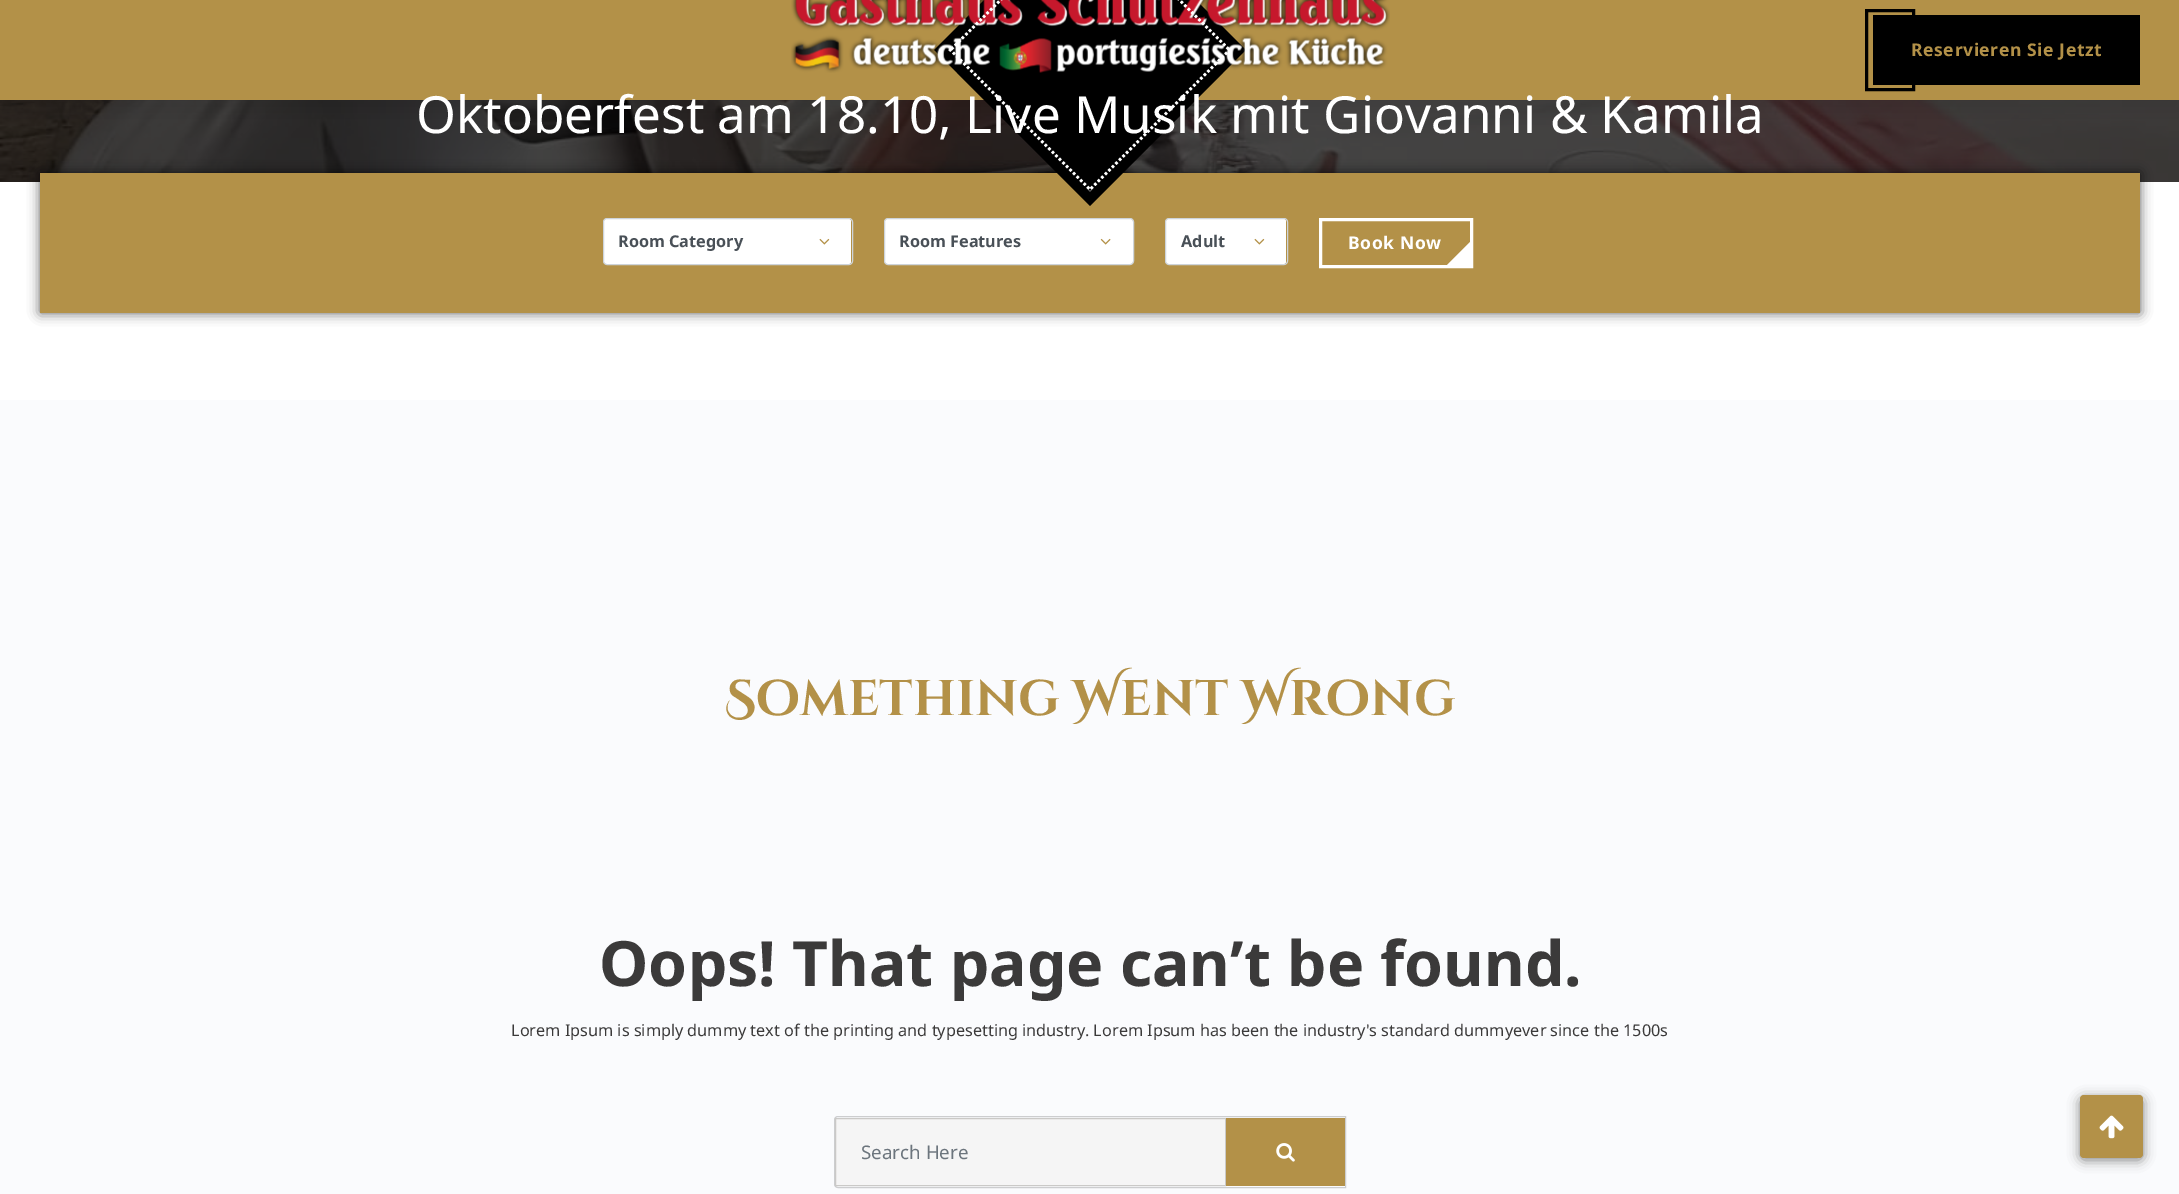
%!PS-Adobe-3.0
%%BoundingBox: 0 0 2179 1194
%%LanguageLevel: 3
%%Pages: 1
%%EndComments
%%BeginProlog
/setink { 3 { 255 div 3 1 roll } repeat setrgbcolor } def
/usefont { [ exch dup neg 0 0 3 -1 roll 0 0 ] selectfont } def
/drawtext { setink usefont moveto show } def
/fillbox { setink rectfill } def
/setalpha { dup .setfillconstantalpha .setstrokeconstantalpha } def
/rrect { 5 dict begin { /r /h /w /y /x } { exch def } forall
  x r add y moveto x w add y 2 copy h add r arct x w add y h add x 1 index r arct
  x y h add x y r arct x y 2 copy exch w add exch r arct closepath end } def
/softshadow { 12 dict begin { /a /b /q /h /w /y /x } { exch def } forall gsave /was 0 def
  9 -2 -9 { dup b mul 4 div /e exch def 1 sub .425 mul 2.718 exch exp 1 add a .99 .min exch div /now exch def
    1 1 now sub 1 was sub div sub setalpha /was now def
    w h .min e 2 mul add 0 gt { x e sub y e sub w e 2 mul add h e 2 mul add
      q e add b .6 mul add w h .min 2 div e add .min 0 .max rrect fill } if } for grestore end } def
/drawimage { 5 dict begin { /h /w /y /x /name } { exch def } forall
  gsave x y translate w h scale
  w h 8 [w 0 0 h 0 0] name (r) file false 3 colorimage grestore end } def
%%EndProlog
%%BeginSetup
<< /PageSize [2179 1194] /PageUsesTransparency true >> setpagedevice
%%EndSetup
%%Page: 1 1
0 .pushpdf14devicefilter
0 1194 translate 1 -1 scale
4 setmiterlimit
0 0 2179 1194 255 255 255 fillbox
(assets/img2.rgb) 0 100 2179 82 drawimage
0 0 0 setink
0 10 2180 100 0 12.5 0.1 softshadow
0 0 2179 100 179 145 72 fillbox
0 0 0 setink
3 setlinewidth
1866.5 10.5 47 79 rectstroke
1873 15 267 70 0 0 0 fillbox
/NotoSans-Bold 17.5 usefont
179 145 72 setink
1911 56 moveto 0.6 0 (Reservieren Sie Jetzt) ashow
0 0 0 setink
40 173 2100 140 0 6 0.63 softshadow
40 173 2100 140 179 145 72 fillbox
0 0 0 setink
934 50 moveto 1090 -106 lineto 1246 50 lineto 1090 206 lineto closepath fill
(assets/img1.rgb) 791 0 599 73 drawimage
255 255 255 setink
2.5 setlinewidth
[2.5 2.5] 0 setdash
1089 -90.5 moveto 1230.5 51 lineto stroke
1230.5 49 moveto 1089 190.5 lineto stroke
949.5 49 moveto 1091 190.5 lineto stroke
1091 -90.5 moveto 949.5 51 lineto stroke
(Oktoberfest am 18.10, Live Musik mit Giovanni & Kamila) 416 133 /NotoSans-Regular 51.25 255 255 255 drawtext
604 219 247 45 2.5 rrect fill
206 212 218 setink
1 setlinewidth
[] 0 setdash
603.5 218.5 249 46 3.5 rrect stroke
(Room Category) 618 247 /NotoSans-Bold 16.25 73 80 87 drawtext
(assets/img3.rgb) 819 238 11 7 drawimage
255 255 255 setink
885 219 248 45 2.5 rrect fill
206 212 218 setink
884.5 218.5 249 46 3.5 rrect stroke
(Room Features) 899 247 /NotoSans-Bold 16.25 73 80 87 drawtext
(assets/img4.rgb) 1100 238 11 7 drawimage
255 255 255 setink
1166 219 120 45 2.5 rrect fill
206 212 218 setink
1165.5 218.5 122 46 3.5 rrect stroke
(Adult) 1181 247 /NotoSans-Bold 16.25 73 80 87 drawtext
(assets/img3.rgb) 1254 238 11 7 drawimage
255 255 255 setink
3 setlinewidth
1320.5 219.5 151 47 rectstroke
/NotoSans-Bold 17.5 usefont
1348 249 moveto 0.6 0 (Book Now) ashow
gsave
1321 220 149 45 rectclip
1447 265 moveto 1974 -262 lineto 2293 56 lineto 1766 583 lineto closepath fill
grestore
0 400 2179 794 250 251 253 fillbox
(Something Went Wrong) 725 715 /CinzelDecorative-Bold 50 179 145 72 drawtext
(Oops! That page can’t be found.) 599 986 /NotoSans-Bold 62.5 59 58 58 drawtext
(Lorem Ipsum is simply dummy text of the printing and typesetting industry. Lorem Ipsum has been the industry's standard dummyever since the 1500s) 511 1036 /NotoSans-Regular 16.25 59 58 58 drawtext
204 205 207 setink
1 setlinewidth
838 1116.5 moveto 1345.5 1116.5 lineto 1345.5 1187.5 lineto 838 1187.5 lineto 836 1187.5 834.5 1186 834.5 1184 curveto 834.5 1120 lineto 834.5 1118 836 1116.5 838 1116.5 curveto closepath stroke
245 245 245 setink
835.5 1118.5 moveto 1225.5 1118.5 lineto 1225.5 1185.5 lineto 835.5 1185.5 lineto closepath gsave fill grestore
202 201 199 setink
stroke
(Search Here) 861 1159 /NotoSans-Regular 18.75 108 117 125 drawtext
1226 1118 119 68 179 145 72 fillbox
(assets/img5.rgb) 1276 1143 19 19 drawimage
0 0 0 setink
2080 1098 63 62 4 6 0.5 softshadow
179 145 72 setink
2080 1095 63 63 4 rrect fill
(assets/img6.rgb) 2099 1115 25 24 drawimage
.poppdf14devicefilter showpage
%%EOF
